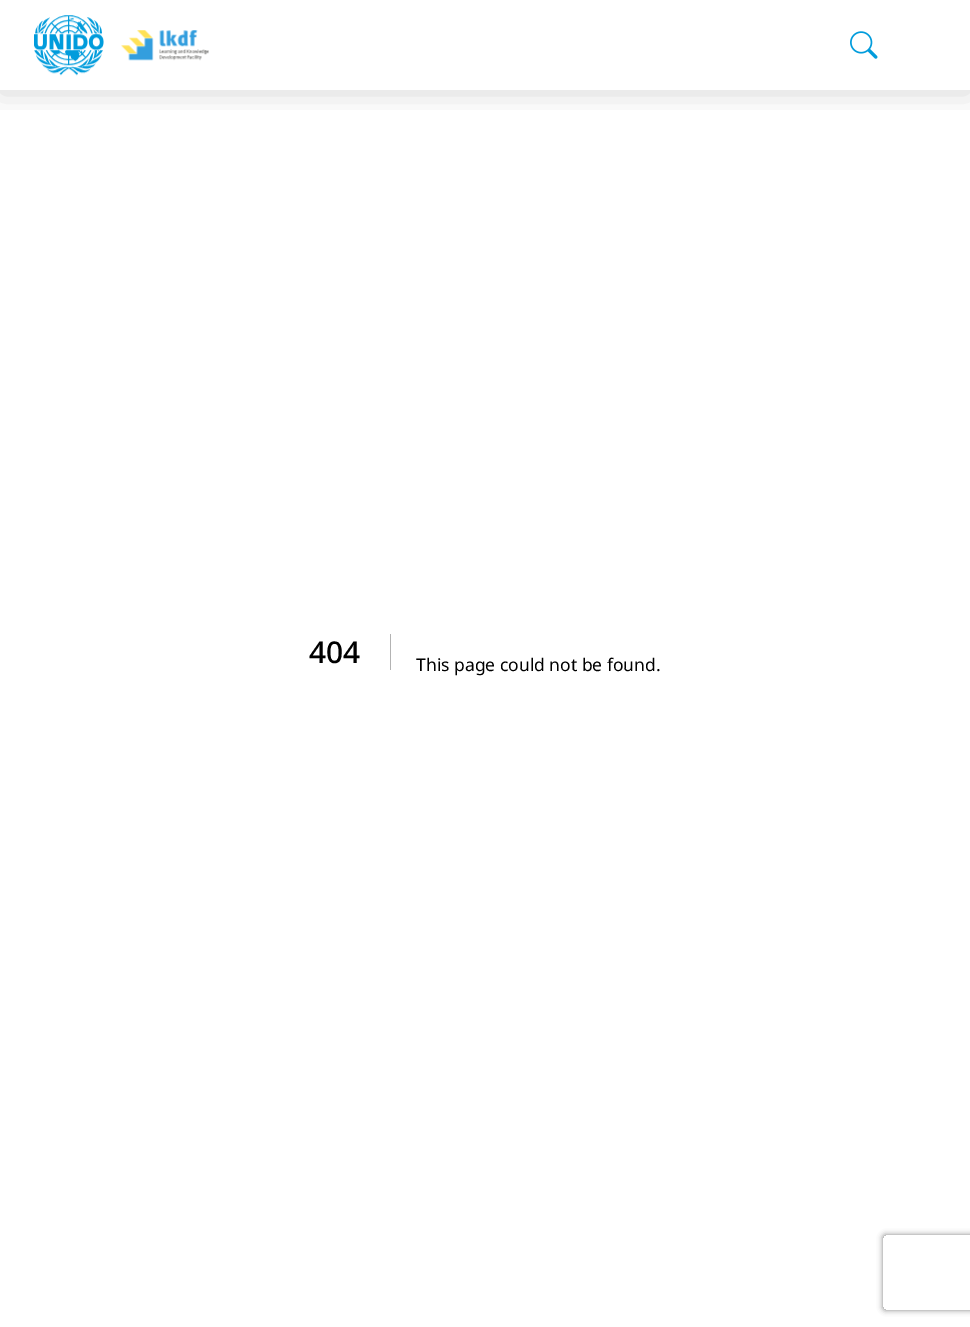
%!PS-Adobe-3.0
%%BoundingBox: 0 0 970 1327
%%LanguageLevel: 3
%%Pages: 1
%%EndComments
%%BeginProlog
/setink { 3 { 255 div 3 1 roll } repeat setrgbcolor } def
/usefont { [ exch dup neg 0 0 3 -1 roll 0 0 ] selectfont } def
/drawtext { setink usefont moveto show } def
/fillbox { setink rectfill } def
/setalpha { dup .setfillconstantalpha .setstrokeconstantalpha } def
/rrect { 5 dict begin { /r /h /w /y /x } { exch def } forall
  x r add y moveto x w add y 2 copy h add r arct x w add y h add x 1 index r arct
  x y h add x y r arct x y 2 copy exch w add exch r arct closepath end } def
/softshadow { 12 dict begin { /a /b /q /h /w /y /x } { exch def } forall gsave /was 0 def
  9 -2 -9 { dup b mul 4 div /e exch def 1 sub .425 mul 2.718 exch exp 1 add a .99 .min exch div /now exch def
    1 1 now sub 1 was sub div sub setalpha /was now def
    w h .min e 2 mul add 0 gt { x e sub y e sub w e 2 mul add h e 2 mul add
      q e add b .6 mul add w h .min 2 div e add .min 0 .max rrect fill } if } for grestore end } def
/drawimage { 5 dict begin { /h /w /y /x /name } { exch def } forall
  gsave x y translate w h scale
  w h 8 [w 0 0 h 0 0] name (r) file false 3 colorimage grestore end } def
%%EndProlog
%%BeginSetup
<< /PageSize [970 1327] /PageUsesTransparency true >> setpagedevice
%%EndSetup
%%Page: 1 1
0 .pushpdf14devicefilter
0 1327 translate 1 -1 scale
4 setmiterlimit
0 0 970 1327 255 255 255 fillbox
gsave
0 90 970 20 rectclip
0 0 0 setink
0 3 970 90 0 15 0.15 softshadow
grestore
(assets/img1.rgb) 34 15 70 61 drawimage
(assets/img2.rgb) 121 30 88 31 drawimage
(assets/img3.rgb) 850 31 28 28 drawimage
390 634 1 36 179 179 179 fillbox
(404) 309 663 /NotoSans-Medium 30 0 0 0 drawtext
(This page could not be found.) 416 671 /NotoSans-Regular 17.5 0 0 0 drawtext
gsave
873 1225 moveto 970 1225 lineto 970 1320 lineto 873 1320 lineto closepath 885.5 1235 moveto 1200.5 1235 lineto 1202 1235 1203 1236 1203 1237.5 curveto 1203 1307.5 lineto 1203 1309 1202 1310 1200.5 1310 curveto 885.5 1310 lineto 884 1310 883 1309 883 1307.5 curveto 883 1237.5 lineto 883 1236 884 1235 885.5 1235 curveto closepath eoclip newpath
128 128 128 setink
883 1235 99 75 2.5 3 1 softshadow
grestore
.poppdf14devicefilter showpage
%%EOF
